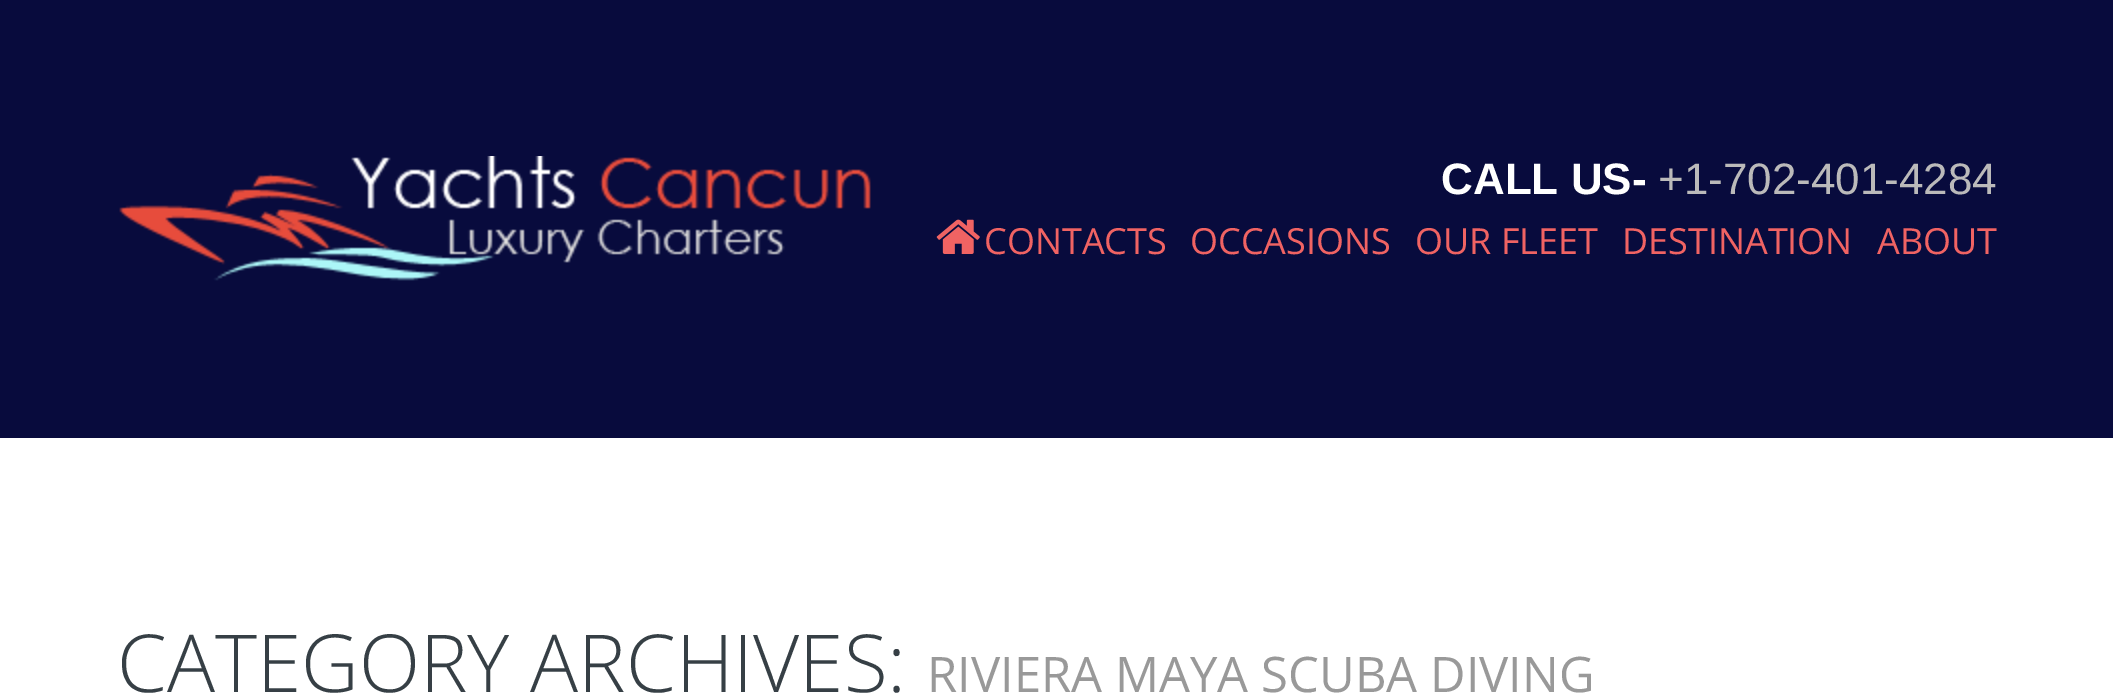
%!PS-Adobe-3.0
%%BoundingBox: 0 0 2113 693
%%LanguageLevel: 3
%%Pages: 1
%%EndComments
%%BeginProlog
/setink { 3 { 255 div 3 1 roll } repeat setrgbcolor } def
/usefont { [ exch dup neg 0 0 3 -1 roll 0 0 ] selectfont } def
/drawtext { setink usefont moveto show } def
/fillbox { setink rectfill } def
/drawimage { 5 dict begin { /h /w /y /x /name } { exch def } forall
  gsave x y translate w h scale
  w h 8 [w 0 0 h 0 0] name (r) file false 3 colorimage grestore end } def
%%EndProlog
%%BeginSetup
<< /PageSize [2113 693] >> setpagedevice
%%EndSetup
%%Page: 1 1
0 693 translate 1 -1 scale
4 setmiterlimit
0 0 2113 693 255 255 255 fillbox
0 0 2113 438 8 11 61 fillbox
(assets/img1.rgb) 119 156 752 125 drawimage
(CALL US-) 1441 194 /LiberationSans-Bold 44 255 255 255 drawtext
(+1-702-401-4284) 1658 194 /LiberationSans-Regular 44 187 186 186 drawtext
(assets/img2.rgb) 936 219 44 35 drawimage
(CONTACTS) 984 254 /OpenSans-Regular 36 240 99 99 drawtext
(OCCASIONS) 1190 254 /OpenSans-Regular 36 240 99 99 drawtext
(OUR FLEET) 1415 254 /OpenSans-Regular 36 240 99 99 drawtext
(DESTINATION) 1622 254 /OpenSans-Regular 36 240 99 99 drawtext
(ABOUT) 1877 254 /OpenSans-Regular 36 240 99 99 drawtext
(CATEGORY ARCHIVES:) 117 692 /OpenSans-Light 80 54 63 69 drawtext
(RIVIERA MAYA SCUBA DIVING) 927 692 /OpenSans-Regular 49 153 153 153 drawtext
showpage
%%EOF
